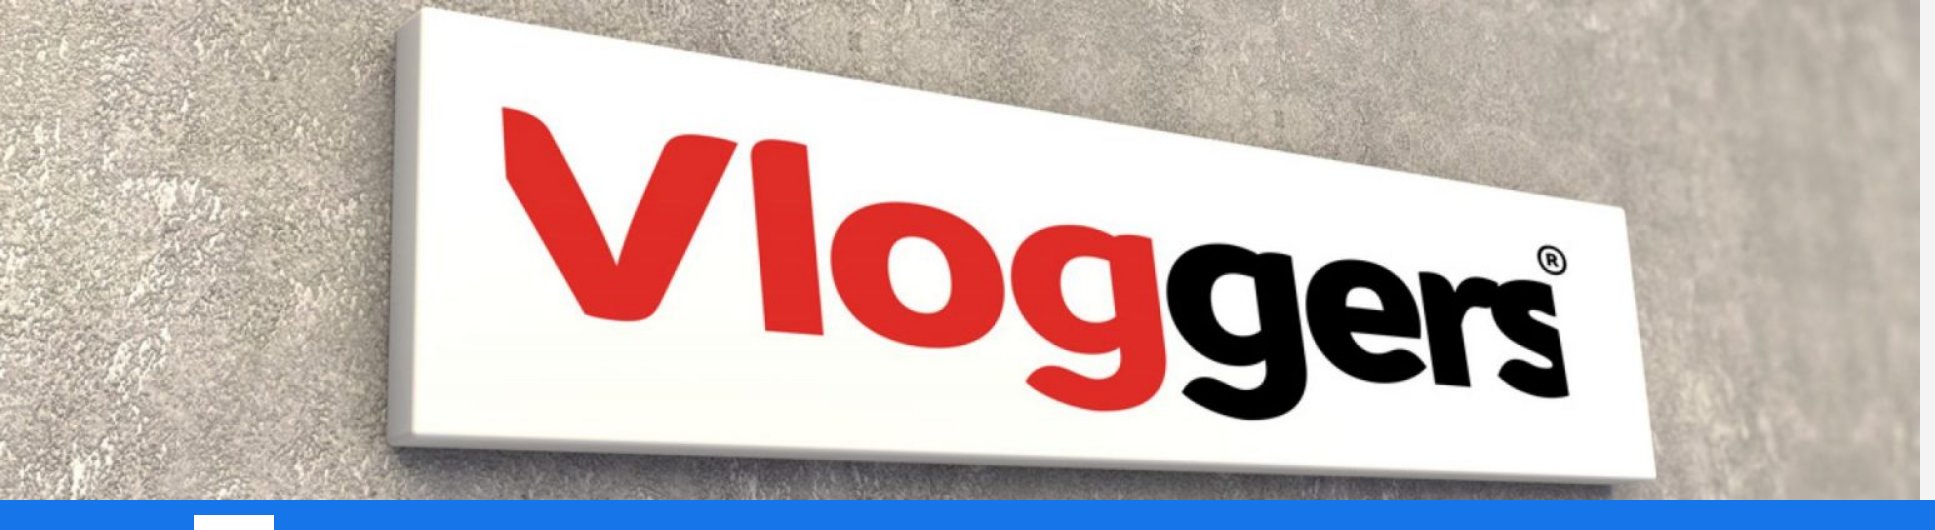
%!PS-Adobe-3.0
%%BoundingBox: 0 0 1935 530
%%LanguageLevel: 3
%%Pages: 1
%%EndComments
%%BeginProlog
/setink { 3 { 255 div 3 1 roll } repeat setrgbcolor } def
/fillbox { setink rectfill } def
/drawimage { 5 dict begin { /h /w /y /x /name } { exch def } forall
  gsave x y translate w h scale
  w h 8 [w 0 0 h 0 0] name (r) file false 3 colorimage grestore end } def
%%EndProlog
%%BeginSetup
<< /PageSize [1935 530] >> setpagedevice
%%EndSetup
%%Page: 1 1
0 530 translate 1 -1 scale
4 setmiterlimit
0 0 1935 530 244 244 244 fillbox
(assets/img1.rgb) 0 0 1920 500 drawimage
0 500 1935 30 22 117 232 fillbox
194 515 80 15 255 255 255 fillbox
showpage
%%EOF
